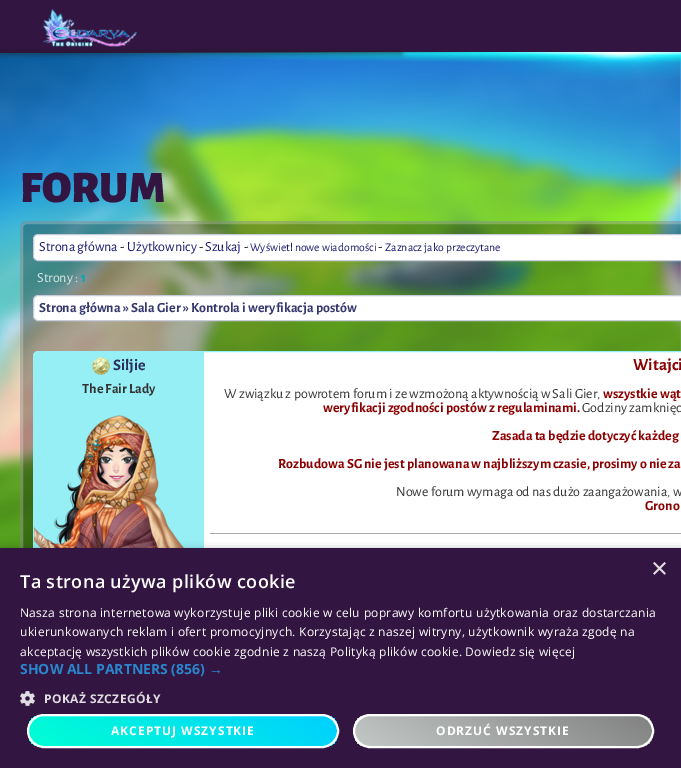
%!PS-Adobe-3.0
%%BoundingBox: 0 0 681 768
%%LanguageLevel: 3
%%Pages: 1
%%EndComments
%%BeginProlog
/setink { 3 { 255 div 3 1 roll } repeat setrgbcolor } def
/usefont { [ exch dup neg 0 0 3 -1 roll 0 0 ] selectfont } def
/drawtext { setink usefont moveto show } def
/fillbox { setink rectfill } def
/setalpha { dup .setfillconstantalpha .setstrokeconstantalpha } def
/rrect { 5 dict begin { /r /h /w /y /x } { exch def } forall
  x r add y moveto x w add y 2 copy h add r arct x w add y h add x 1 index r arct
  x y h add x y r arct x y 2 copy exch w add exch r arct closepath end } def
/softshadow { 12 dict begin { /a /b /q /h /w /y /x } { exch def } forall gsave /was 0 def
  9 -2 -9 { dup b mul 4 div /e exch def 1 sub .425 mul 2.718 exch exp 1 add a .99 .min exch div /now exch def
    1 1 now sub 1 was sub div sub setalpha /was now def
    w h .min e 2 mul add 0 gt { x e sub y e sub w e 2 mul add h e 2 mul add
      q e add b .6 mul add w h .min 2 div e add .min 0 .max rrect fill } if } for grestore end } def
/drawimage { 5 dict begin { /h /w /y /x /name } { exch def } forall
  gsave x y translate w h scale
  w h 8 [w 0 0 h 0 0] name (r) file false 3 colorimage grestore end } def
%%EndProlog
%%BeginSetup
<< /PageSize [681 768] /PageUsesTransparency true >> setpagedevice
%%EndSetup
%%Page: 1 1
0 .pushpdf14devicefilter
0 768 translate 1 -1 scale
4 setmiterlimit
0 0 681 768 255 255 255 fillbox
0 0 681 53 50 21 64 fillbox
(assets/img1.rgb) 41 8 96 39 drawimage
(assets/img3.rgb) 0 53 681 495 drawimage
(assets/img2.rgb) 113 52 568 27 drawimage
27 27 27 setink
-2 51 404 4 0 2.5 0.41 softshadow
(FORUM) 20 202 /AlegreyaSansSC-Black 45 50 21 64 drawtext
0.3 setalpha
0 0 0 setink
20 221 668 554 7 rrect fill
0.25 setalpha
255 255 255 setink
3 setlinewidth
21.5 222.5 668 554 5.5 rrect stroke
1 setalpha
33.5 234.5 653 26 4.5 rrect gsave fill grestore
199 204 218 setink
1 setlinewidth
stroke
(Strona główna) 39 251 /AlegreyaSans-Regular 14 25 25 112 drawtext
(-) 120 251 /AlegreyaSans-Regular 14 0 0 0 drawtext
(Użytkownicy) 127 251 /AlegreyaSans-Regular 14 25 25 112 drawtext
(-) 199 251 /AlegreyaSans-Regular 14 0 0 0 drawtext
(Szukaj) 205 251 /AlegreyaSans-Regular 14 25 25 112 drawtext
(-) 244 251 /AlegreyaSans-Regular 14 0 0 0 drawtext
(Wyświetl nowe wiadomości) 250 251 /AlegreyaSans-Regular 11.75 25 25 112 drawtext
(-) 378 251 /AlegreyaSans-Regular 14 0 0 0 drawtext
(Zaznacz jako przeczytane) 385 251 /AlegreyaSans-Regular 11.75 25 25 112 drawtext
(Strony :) 37 282 /AlegreyaSans-Regular 14 219 232 231 drawtext
(1) 81 282 /AlegreyaSans-Bold 14 1 171 181 drawtext
255 255 255 setink
33.5 295.5 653 25 4.5 rrect gsave fill grestore
199 204 218 setink
stroke
(Strona główna » Sala Gier » Kontrola i weryfikacja postów) 39 312 /AlegreyaSans-Bold 14 52 56 111 drawtext
255 255 255 setink
38 351.5 moveto 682 351.5 lineto 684.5 351.5 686.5 353.5 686.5 356 curveto 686.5 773.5 lineto 33.5 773.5 lineto 33.5 356 lineto 33.5 353.5 35.5 351.5 38 351.5 curveto closepath gsave fill grestore
150 239 245 setink
stroke
38 352 moveto 204 352 lineto 204 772 lineto 34 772 lineto 34 356 lineto 34 354 36 352 38 352 curveto closepath fill
(assets/img4.rgb) 92 357 18 18 drawimage
(Siljie) 113 370 /AlegreyaSans-Bold 16 43 47 93 drawtext
(The Fair Lady) 82 393 /AlegreyaSans-Bold 14 51 51 51 drawtext
(assets/img5.rgb) 34 415 150 133 drawimage
(Witajci) 633 370 /AlegreyaSans-Bold 17 139 0 0 drawtext
(W związku z powrotem forum i ze wzmożoną aktywnością w Sali Gier,) 224 398 /AlegreyaSans-Regular 14 51 51 51 drawtext
(wszystkie wąt) 603 398 /AlegreyaSans-Bold 14 139 0 0 drawtext
(weryfikacji zgodności postów z regulaminami.) 323 412 /AlegreyaSans-Bold 14 139 0 0 drawtext
(Godziny zamknięc) 582 412 /AlegreyaSans-Regular 14 51 51 51 drawtext
(Zasada ta będzie dotyczyć każdeg) 492 440 /AlegreyaSans-Bold 14 139 0 0 drawtext
(Rozbudowa SG nie jest planowana w najbliższym czasie, prosimy o nie za) 278 468 /AlegreyaSans-Bold 14 139 0 0 drawtext
(Nowe forum wymaga od nas dużo zaangażowania, w) 396 496 /AlegreyaSans-Regular 14 51 51 51 drawtext
(Grono) 645 510 /AlegreyaSans-Bold 14 139 0 0 drawtext
210 533 471 1 170 170 170 fillbox
0 0 0 setink
1 550 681 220 0 4 0.35 softshadow
0 548 681 220 50 21 64 fillbox
(×) 651 578 /LiberationSans-Regular 29 224 220 226 drawtext
/OpenSans-SemiBold 18 usefont
255 255 255 setink
20 588 moveto 0.4 0 (Ta strona używa plików cookie) ashow
/OpenSans-Regular 12 usefont
20 617 moveto 0.3 0 (Nasza strona internetowa wykorzystuje pliki cookie w celu poprawy komfortu użytkowania oraz dostarczania) ashow
20 636 moveto 0.3 0 (ukierunkowanych reklam i ofert promocyjnych. Korzystając z naszej witryny, użytkownik wyraża zgodę na) ashow
20 656 moveto 0.3 0 (akceptację wszystkich plików cookie zgodnie z naszą Polityką plików cookie. Dowiedz się więcej) ashow
(SHOW ALL PARTNERS \(856\)) 20 674 /OpenSans-Bold 14 41 134 204 drawtext
(→) 209 674 /LiberationSans-Bold 14 41 134 204 drawtext
(assets/img6.rgb) 20 691 15 15 drawimage
/OpenSans-Bold 12 usefont
224 220 226 setink
44 703 moveto 0.4 0 (POKAŻ SZCZEGÓŁY) ashow
gsave
27 714 312 34 17 rrect clip newpath
gsave 29 716 moveto 337 716 lineto 337 746 lineto 29 746 lineto closepath clip newpath
<< /ShadingType 2 /ColorSpace /DeviceRGB /Coords [230 652 136 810] /Extend [true true] /Function << /FunctionType 2 /Domain [0 1] /C0 [0 0.816 1] /C1 [0 1 0.827] /N 1 >> >> shfill grestore
grestore
255 255 255 setink
2 setlinewidth
28 715 310 32 16 rrect stroke
111 735 moveto 1 0 (AKCEPTUJ WSZYSTKIE) ashow
gsave
353 714 301 34 17 rrect clip newpath
gsave 355 716 moveto 652 716 lineto 652 746 lineto 355 746 lineto closepath clip newpath
<< /ShadingType 2 /ColorSpace /DeviceRGB /Coords [550 654 457 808] /Extend [true true] /Function << /FunctionType 2 /Domain [0 1] /C0 [0.506 0.506 0.506] /C1 [0.765 0.784 0.78] /N 1 >> >> shfill grestore
grestore
354 715 299 32 16 rrect stroke
436 735 moveto 1 0 (ODRZUĆ WSZYSTKIE) ashow
.poppdf14devicefilter showpage
%%EOF
